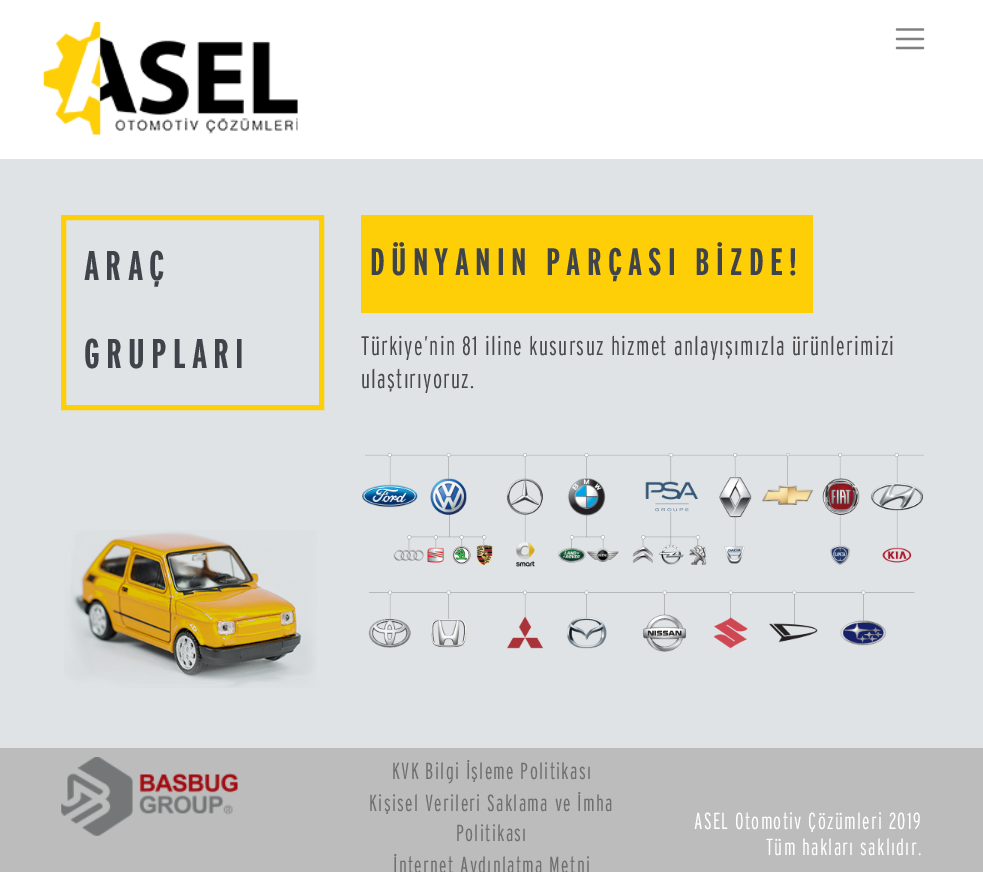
%!PS-Adobe-3.0
%%BoundingBox: 0 0 983 872
%%LanguageLevel: 3
%%Pages: 1
%%EndComments
%%BeginProlog
/setink { 3 { 255 div 3 1 roll } repeat setrgbcolor } def
/usefont { [ exch dup neg 0 0 3 -1 roll 0 0 ] selectfont } def
/fillbox { setink rectfill } def
/drawimage { 5 dict begin { /h /w /y /x /name } { exch def } forall
  gsave x y translate w h scale
  w h 8 [w 0 0 h 0 0] name (r) file false 3 colorimage grestore end } def
%%EndProlog
%%BeginSetup
<< /PageSize [983 872] >> setpagedevice
%%EndSetup
%%Page: 1 1
0 872 translate 1 -1 scale
4 setmiterlimit
0 0 983 872 255 255 255 fillbox
(assets/img1.rgb) 43 22 255 113 drawimage
128 128 128 setink
2.3 setlinewidth
1 setlinecap
897 29.5 moveto 923 29.5 lineto 897 39 moveto 923 39 lineto 897 48 moveto 923 48 lineto stroke
0 159 983 589 223 227 229 fillbox
254 206 7 setink
5 setlinewidth
0 setlinecap
63.5 217.5 258 190 rectstroke
/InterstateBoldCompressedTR-Bold 41.5 usefont
63 68 74 setink
84 280 moveto 6.25 0 (ARAÇ) ashow
84 368 moveto 6.25 0 (GRUPLARI) ashow
(assets/img2.rgb) 64 530 253 158 drawimage
361 215 452 98 254 206 7 fillbox
/InterstateBoldCompressedTR-Bold 38.25 usefont
63 68 74 setink
370 275 moveto 6.25 0 (DÜNYANIN PARÇASI BİZDE!) ashow
/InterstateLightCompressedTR-Light 26.7 usefont
74 74 74 setink
361 355 moveto 1.25 0 (Türkiye’nin 81 iline kusursuz hizmet anlayışımızla ürünlerimizi) ashow
361 388 moveto 1.25 0 (ulaştırıyoruz.) ashow
(assets/img3.rgb) 362 453 562 199 drawimage
0 748 983 124 188 188 188 fillbox
(assets/img4.rgb) 61 757 177 79 drawimage
/InterstateLightCompressedTR-Light 23.25 usefont
111 111 111 setink
392 779 moveto 1.25 0 (KVK Bilgi İşleme Politikası) ashow
369 811 moveto 1.25 0 (Kişisel Verileri Saklama ve İmha) ashow
456 841 moveto 1.25 0 (Politikası) ashow
393 873 moveto 1.25 0 (İnternet Aydınlatma Metni) ashow
255 255 255 setink
694 829 moveto 1.25 0 (ASEL Otomotiv Çözümleri 2019) ashow
766 855 moveto 1.25 0 (Tüm hakları saklıdır.) ashow
showpage
%%EOF
